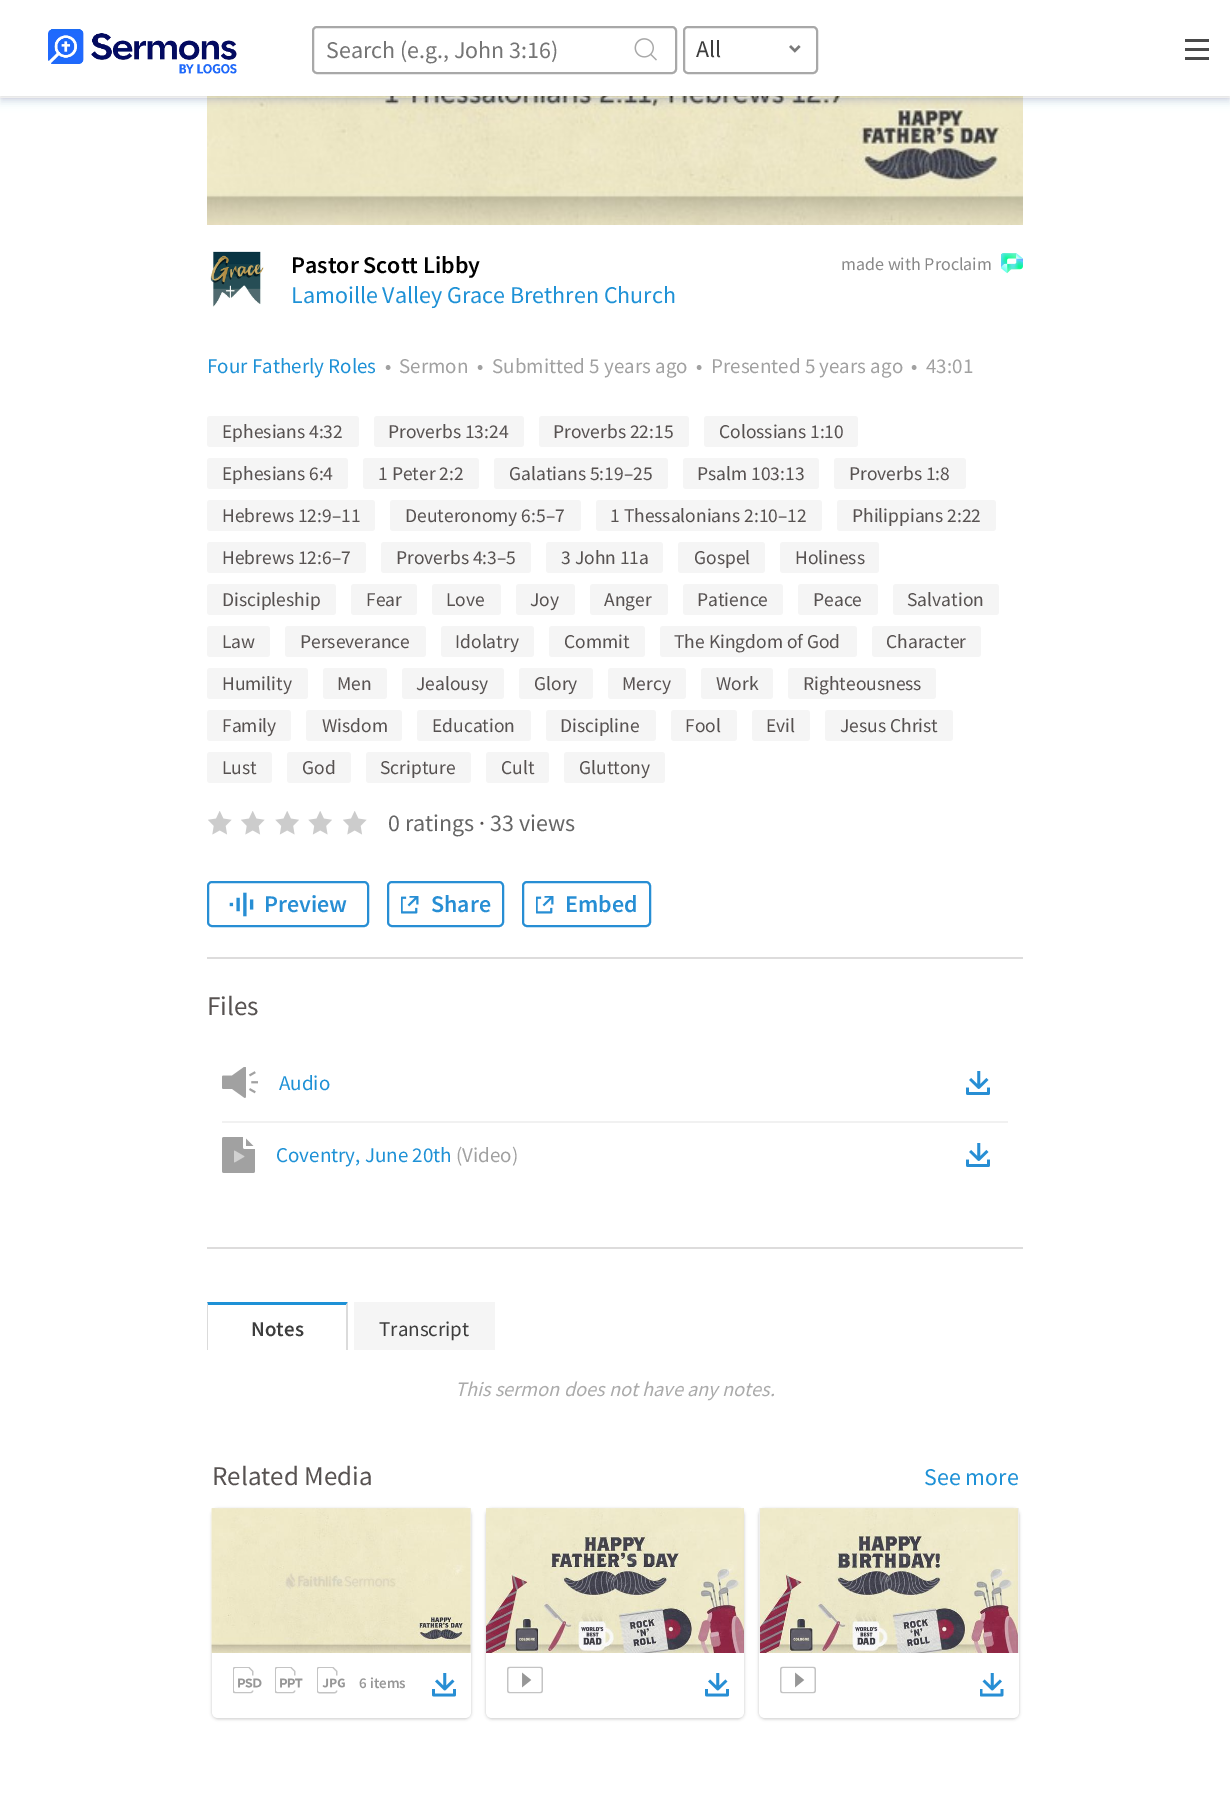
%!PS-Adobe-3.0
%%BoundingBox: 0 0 1230 1794
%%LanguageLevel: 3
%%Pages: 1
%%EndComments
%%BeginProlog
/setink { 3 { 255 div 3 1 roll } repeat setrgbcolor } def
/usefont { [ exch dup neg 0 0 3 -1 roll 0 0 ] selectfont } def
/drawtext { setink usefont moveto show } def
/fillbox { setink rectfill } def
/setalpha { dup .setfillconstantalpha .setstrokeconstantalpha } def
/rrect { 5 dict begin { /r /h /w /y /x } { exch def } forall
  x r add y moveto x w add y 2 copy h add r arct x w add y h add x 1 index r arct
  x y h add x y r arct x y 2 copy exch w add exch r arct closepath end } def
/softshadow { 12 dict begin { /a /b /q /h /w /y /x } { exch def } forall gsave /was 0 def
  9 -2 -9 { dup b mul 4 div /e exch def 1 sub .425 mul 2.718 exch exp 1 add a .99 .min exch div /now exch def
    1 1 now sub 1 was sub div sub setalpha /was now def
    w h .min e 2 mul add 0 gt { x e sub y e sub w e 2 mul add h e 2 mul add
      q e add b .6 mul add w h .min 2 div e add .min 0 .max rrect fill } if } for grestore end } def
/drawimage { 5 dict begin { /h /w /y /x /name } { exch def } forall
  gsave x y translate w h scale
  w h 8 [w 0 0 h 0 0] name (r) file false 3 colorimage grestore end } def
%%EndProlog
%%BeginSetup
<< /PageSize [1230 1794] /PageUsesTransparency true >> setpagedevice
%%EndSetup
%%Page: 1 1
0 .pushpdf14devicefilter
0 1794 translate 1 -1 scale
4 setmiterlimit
0 0 1230 1794 255 255 255 fillbox
(assets/img5.rgb) 207 96 816 129 drawimage
0 0 0 setink
0 2 1230 96 0 1.5 0.1 softshadow
0 0 1230 96 255 255 255 fillbox
gsave
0 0 moveto 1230 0 lineto 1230 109 lineto 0 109 lineto closepath 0 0 moveto 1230 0 lineto 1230 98 lineto 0 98 lineto closepath eoclip newpath
110 131 183 setink
2 5 1227 94 0 3 0.2 softshadow
grestore
gsave
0 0 moveto 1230 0 lineto 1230 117 lineto 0 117 lineto closepath 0 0 moveto 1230 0 lineto 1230 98 lineto 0 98 lineto closepath eoclip newpath
110 131 183 setink
0 6 1230 98 0 4 0.14 softshadow
grestore
(assets/img1.rgb) 48 29 189 45 drawimage
168 168 168 setink
2 setlinewidth
313 27 363 46 4 rrect stroke
(Search \(e.g., John 3:16\)) 326 58 /SourceSansPro-Regular 24 117 117 117 drawtext
(assets/img2.rgb) 634 38 23 23 drawimage
168 168 168 setink
684 27 133 46 4 rrect stroke
(All) 696 57 /SourceSansPro-Regular 24 61 61 61 drawtext
(assets/img3.rgb) 789 45 12 8 drawimage
(assets/img4.rgb) 1185 39 24 21 drawimage
207 1247 816 2 221 220 220 fillbox
(assets/img6.rgb) 210 251 54 56 drawimage
(Pastor Scott Libby) 291 273 /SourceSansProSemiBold-SemiBold 24 0 0 0 drawtext
(Lamoille Valley Grace Brethren Church) 291 303 /SourceSansPro-Regular 24 30 145 214 drawtext
(made with Proclaim) 841 270 /SourceSansPro-Regular 18 136 136 136 drawtext
(assets/img7.rgb) 1001 253 22 21 drawimage
(Four Fatherly Roles) 207 373 /SourceSansPro-Regular 21 30 145 214 drawtext
(•) 385 373 /SourceSansPro-Regular 21 161 161 161 drawtext
(Sermon) 399 373 /SourceSansPro-Regular 21 161 161 161 drawtext
(•) 477 373 /SourceSansPro-Regular 21 161 161 161 drawtext
(Submitted 5 years ago) 492 373 /SourceSansPro-Regular 21 161 161 161 drawtext
(•) 696 373 /SourceSansPro-Regular 21 161 161 161 drawtext
(Presented 5 years ago) 711 373 /SourceSansPro-Regular 21 161 161 161 drawtext
(•) 911 373 /SourceSansPro-Regular 21 161 161 161 drawtext
(43:01) 926 373 /SourceSansPro-Regular 21 161 161 161 drawtext
245 245 245 setink
207 416 152 31 3 rrect fill
(Ephesians 4:32) 222 438 /SourceSansPro-Regular 19.5 87 82 81 drawtext
245 245 245 setink
374 416 150 31 3 rrect fill
(Proverbs 13:24) 388 438 /SourceSansPro-Regular 19.5 87 82 81 drawtext
245 245 245 setink
539 416 150 31 3 rrect fill
(Proverbs 22:15) 553 438 /SourceSansPro-Regular 19.5 87 82 81 drawtext
245 245 245 setink
704 416 154 31 3 rrect fill
(Colossians 1:10) 719 438 /SourceSansPro-Regular 19.5 87 82 81 drawtext
245 245 245 setink
207 458 141 31 3 rrect fill
(Ephesians 6:4) 222 480 /SourceSansPro-Regular 19.5 87 82 81 drawtext
245 245 245 setink
363 458 116 31 3 rrect fill
(1 Peter 2:2) 378 480 /SourceSansPro-Regular 19.5 87 82 81 drawtext
245 245 245 setink
494 458 174 31 3 rrect fill
(Galatians 5:19–25) 509 480 /SourceSansPro-Regular 19.5 87 82 81 drawtext
245 245 245 setink
683 458 136 31 3 rrect fill
(Psalm 103:13) 697 480 /SourceSansPro-Regular 19.5 87 82 81 drawtext
245 245 245 setink
834 458 132 31 3 rrect fill
(Proverbs 1:8) 849 480 /SourceSansPro-Regular 19.5 87 82 81 drawtext
245 245 245 setink
207 500 168 31 3 rrect fill
(Hebrews 12:9–11) 222 522 /SourceSansPro-Regular 19.5 87 82 81 drawtext
245 245 245 setink
390 500 191 31 3 rrect fill
(Deuteronomy 6:5–7) 405 522 /SourceSansPro-Regular 19.5 87 82 81 drawtext
245 245 245 setink
596 500 226 31 3 rrect fill
(1 Thessalonians 2:10–12) 610 522 /SourceSansPro-Regular 19.5 87 82 81 drawtext
245 245 245 setink
837 500 159 31 3 rrect fill
(Philippians 2:22) 852 522 /SourceSansPro-Regular 19.5 87 82 81 drawtext
245 245 245 setink
207 542 159 31 3 rrect fill
(Hebrews 12:6–7) 222 564 /SourceSansPro-Regular 19.5 87 82 81 drawtext
245 245 245 setink
381 542 150 31 3 rrect fill
(Proverbs 4:3–5) 396 564 /SourceSansPro-Regular 19.5 87 82 81 drawtext
245 245 245 setink
546 542 117 31 3 rrect fill
(3 John 11a) 561 564 /SourceSansPro-Regular 19.5 87 82 81 drawtext
245 245 245 setink
678 542 87 31 3 rrect fill
(Gospel) 694 564 /SourceSansPro-Regular 19.5 87 82 81 drawtext
245 245 245 setink
780 542 99 31 3 rrect fill
(Holiness) 795 564 /SourceSansPro-Regular 19.5 87 82 81 drawtext
245 245 245 setink
207 584 129 31 3 rrect fill
(Discipleship) 222 606 /SourceSansPro-Regular 19.5 87 82 81 drawtext
245 245 245 setink
351 584 66 31 3 rrect fill
(Fear) 366 606 /SourceSansPro-Regular 19.5 87 82 81 drawtext
245 245 245 setink
432 584 69 31 3 rrect fill
(Love) 446 606 /SourceSansPro-Regular 19.5 87 82 81 drawtext
245 245 245 setink
516 584 59 31 3 rrect fill
(Joy) 530 606 /SourceSansPro-Regular 19.5 87 82 81 drawtext
245 245 245 setink
590 584 78 31 3 rrect fill
(Anger) 604 606 /SourceSansPro-Regular 19.5 87 82 81 drawtext
245 245 245 setink
683 584 100 31 3 rrect fill
(Patience) 697 606 /SourceSansPro-Regular 19.5 87 82 81 drawtext
245 245 245 setink
798 584 80 31 3 rrect fill
(Peace) 813 606 /SourceSansPro-Regular 19.5 87 82 81 drawtext
245 245 245 setink
893 584 106 31 3 rrect fill
(Salvation) 907 606 /SourceSansPro-Regular 19.5 87 82 81 drawtext
245 245 245 setink
207 626 63 31 3 rrect fill
(Law) 222 648 /SourceSansPro-Regular 19.5 87 82 81 drawtext
245 245 245 setink
285 626 141 31 3 rrect fill
(Perseverance) 300 648 /SourceSansPro-Regular 19.5 87 82 81 drawtext
245 245 245 setink
441 626 93 31 3 rrect fill
(Idolatry) 455 648 /SourceSansPro-Regular 19.5 87 82 81 drawtext
245 245 245 setink
549 626 96 31 3 rrect fill
(Commit) 564 648 /SourceSansPro-Regular 19.5 87 82 81 drawtext
245 245 245 setink
660 626 197 31 3 rrect fill
(The Kingdom of God) 674 648 /SourceSansPro-Regular 19.5 87 82 81 drawtext
245 245 245 setink
872 626 109 31 3 rrect fill
(Character) 886 648 /SourceSansPro-Regular 19.5 87 82 81 drawtext
245 245 245 setink
207 668 101 31 3 rrect fill
(Humility) 222 690 /SourceSansPro-Regular 19.5 87 82 81 drawtext
245 245 245 setink
323 668 64 31 3 rrect fill
(Men) 337 690 /SourceSansPro-Regular 19.5 87 82 81 drawtext
245 245 245 setink
402 668 102 31 3 rrect fill
(Jealousy) 416 690 /SourceSansPro-Regular 19.5 87 82 81 drawtext
245 245 245 setink
519 668 74 31 3 rrect fill
(Glory) 534 690 /SourceSansPro-Regular 19.5 87 82 81 drawtext
245 245 245 setink
608 668 78 31 3 rrect fill
(Mercy) 622 690 /SourceSansPro-Regular 19.5 87 82 81 drawtext
245 245 245 setink
701 668 72 31 3 rrect fill
(Work) 716 690 /SourceSansPro-Regular 19.5 87 82 81 drawtext
245 245 245 setink
788 668 148 31 3 rrect fill
(Righteousness) 803 690 /SourceSansPro-Regular 19.5 87 82 81 drawtext
245 245 245 setink
207 710 84 31 3 rrect fill
(Family) 222 732 /SourceSansPro-Regular 19.5 87 82 81 drawtext
245 245 245 setink
306 710 96 31 3 rrect fill
(Wisdom) 322 732 /SourceSansPro-Regular 19.5 87 82 81 drawtext
245 245 245 setink
417 710 114 31 3 rrect fill
(Education) 432 732 /SourceSansPro-Regular 19.5 87 82 81 drawtext
245 245 245 setink
546 710 110 31 3 rrect fill
(Discipline) 560 732 /SourceSansPro-Regular 19.5 87 82 81 drawtext
245 245 245 setink
671 710 66 31 3 rrect fill
(Fool) 685 732 /SourceSansPro-Regular 19.5 87 82 81 drawtext
245 245 245 setink
752 710 58 31 3 rrect fill
(Evil) 766 732 /SourceSansPro-Regular 19.5 87 82 81 drawtext
245 245 245 setink
825 710 128 31 3 rrect fill
(Jesus Christ) 840 732 /SourceSansPro-Regular 19.5 87 82 81 drawtext
245 245 245 setink
207 752 65 31 3 rrect fill
(Lust) 222 774 /SourceSansPro-Regular 19.5 87 82 81 drawtext
245 245 245 setink
287 752 64 31 3 rrect fill
(God) 302 774 /SourceSansPro-Regular 19.5 87 82 81 drawtext
245 245 245 setink
366 752 105 31 3 rrect fill
(Scripture) 380 774 /SourceSansPro-Regular 19.5 87 82 81 drawtext
245 245 245 setink
486 752 63 31 3 rrect fill
(Cult) 501 774 /SourceSansPro-Regular 19.5 87 82 81 drawtext
245 245 245 setink
564 752 101 31 3 rrect fill
(Gluttony) 579 774 /SourceSansPro-Regular 19.5 87 82 81 drawtext
(assets/img8.rgb) 208 811 24 24 drawimage
(assets/img8.rgb) 241 811 24 24 drawimage
(assets/img9.rgb) 275 811 24 24 drawimage
(assets/img9.rgb) 308 811 24 24 drawimage
(assets/img8.rgb) 343 811 24 24 drawimage
(0 ratings) 388 831 /SourceSansPro-Regular 24 102 102 102 drawtext
(·) 479 831 /SourceSansPro-Regular 24 87 82 81 drawtext
(33 views) 490 831 /SourceSansPro-Regular 24 102 102 102 drawtext
39 142 212 setink
208 882 160 44 4 rrect stroke
(assets/img10.rgb) 229 892 25 25 drawimage
(Preview) 264 912 /SourceSansProSemiBold-SemiBold 24 39 142 212 drawtext
388 882 115 44 4 rrect stroke
(assets/img11.rgb) 401 896 18 18 drawimage
(Share) 431 912 /SourceSansProSemiBold-SemiBold 24 39 142 212 drawtext
523 882 127 44 4 rrect stroke
(assets/img11.rgb) 536 896 18 18 drawimage
(Embed) 565 912 /SourceSansProSemiBold-SemiBold 24 39 142 212 drawtext
207 957 816 2 221 220 220 fillbox
(Files) 207 1015 /SourceSansPro-Regular 27 87 82 81 drawtext
222 1121 786 2 241 241 241 fillbox
(assets/img12.rgb) 222 1067 36 31 drawimage
(Audio) 279 1090 /SourceSansPro-Regular 21 30 145 214 drawtext
(assets/img13.rgb) 966 1071 24 24 drawimage
(assets/img14.rgb) 222 1137 33 36 drawimage
(Coventry, June 20th) 276 1162 /SourceSansPro-Regular 21 30 145 214 drawtext
(\(Video\)) 456 1162 /SourceSansPro-Regular 21 161 161 161 drawtext
(assets/img13.rgb) 966 1143 24 24 drawimage
30 145 214 setink
207 1302 moveto 348 1302 lineto 346 1305 lineto 208 1305 lineto closepath fill
219 219 219 setink
348 1302 moveto 348 1350 lineto 346 1350 lineto 346 1305 lineto closepath fill
207 1350 moveto 207 1302 lineto 208 1305 lineto 208 1350 lineto closepath fill
(Notes) 251 1336 /SourceSansProSemiBold-SemiBold 21 61 61 61 drawtext
354 1302 141 48 245 245 245 fillbox
(Transcript) 379 1336 /SourceSansPro-Regular 21 61 61 61 drawtext
(This sermon does not have any notes.) 455 1396 /SourceSansPro-Italic 20.4 170 170 170 drawtext
(Related Media) 212 1485 /SourceSansPro-Regular 27 87 82 81 drawtext
(See more) 924 1485 /SourceSansPro-Regular 24 30 145 214 drawtext
0 0 0 setink
212 1509 259 210 6 1.5 0.2 softshadow
255 255 255 setink
212 1508 moveto 471 1508 lineto 471 1712 lineto 471 1715.5 468.5 1718 465 1718 curveto 218 1718 lineto 214.5 1718 212 1715.5 212 1712 curveto closepath fill
212 1508 259 145 238 238 238 fillbox
(assets/img15.rgb) 211 1508 260 145 drawimage
(assets/img16.rgb) 233 1667 29 27 drawimage
(assets/img17.rgb) 275 1667 28 27 drawimage
(assets/img18.rgb) 317 1667 28 27 drawimage
(6 items) 359 1688 /SourceSansProSemiBold-SemiBold 15 151 151 151 drawtext
(assets/img19.rgb) 432 1673 24 24 drawimage
0 0 0 setink
486 1509 258 210 6 1.5 0.2 softshadow
255 255 255 setink
486 1508 moveto 744 1508 lineto 744 1712 lineto 744 1715.5 741.5 1718 738 1718 curveto 492 1718 lineto 488.5 1718 486 1715.5 486 1712 curveto closepath fill
(assets/img20.rgb) 486 1508 258 145 drawimage
(assets/img21.rgb) 507 1666 36 28 drawimage
(assets/img19.rgb) 705 1673 24 24 drawimage
0 0 0 setink
759 1509 260 210 6 1.5 0.2 softshadow
255 255 255 setink
759 1508 moveto 1019 1508 lineto 1019 1712 lineto 1019 1715.5 1016.5 1718 1013 1718 curveto 765 1718 lineto 761.5 1718 759 1715.5 759 1712 curveto closepath fill
759 1508 260 145 238 238 238 fillbox
(assets/img22.rgb) 760 1508 258 145 drawimage
(assets/img23.rgb) 780 1666 36 28 drawimage
(assets/img24.rgb) 980 1673 24 24 drawimage
.poppdf14devicefilter showpage
%%EOF
